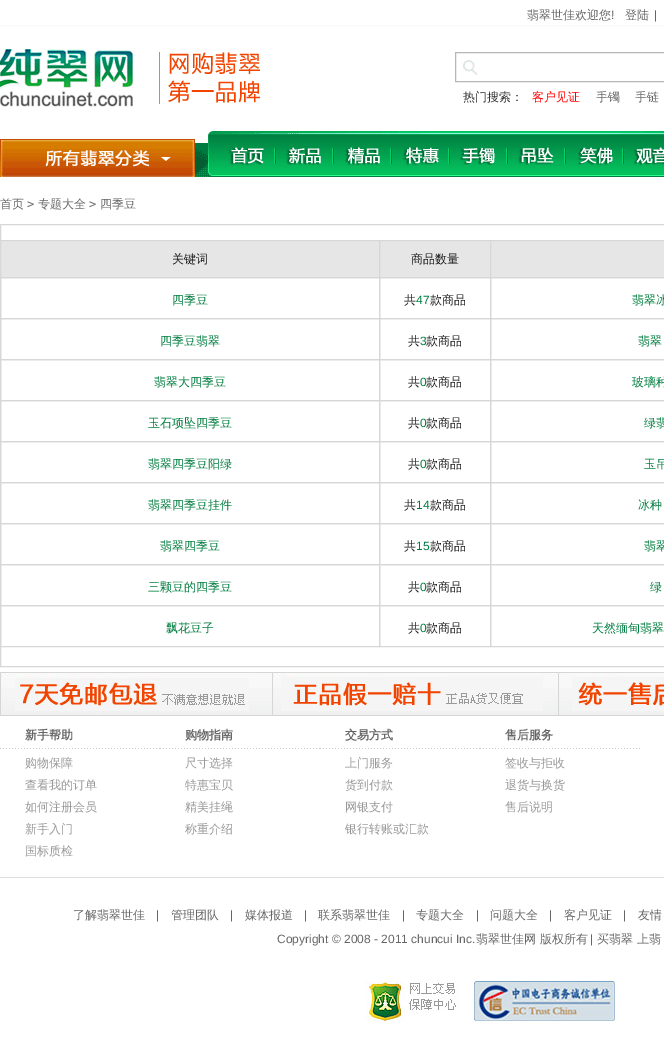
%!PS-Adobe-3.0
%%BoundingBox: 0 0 664 1045
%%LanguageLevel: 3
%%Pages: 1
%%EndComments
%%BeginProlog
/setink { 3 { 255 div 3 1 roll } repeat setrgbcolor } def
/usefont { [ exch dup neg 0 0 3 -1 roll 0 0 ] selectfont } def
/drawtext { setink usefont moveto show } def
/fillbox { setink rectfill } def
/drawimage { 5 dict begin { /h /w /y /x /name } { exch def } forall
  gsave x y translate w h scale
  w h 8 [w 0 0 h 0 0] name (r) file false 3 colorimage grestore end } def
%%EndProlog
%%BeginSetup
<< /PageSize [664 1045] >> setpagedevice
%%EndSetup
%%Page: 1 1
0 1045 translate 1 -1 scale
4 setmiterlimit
0 0 664 1045 255 255 255 fillbox
0 25 664 2 251 251 251 fillbox
(翡翠世佳欢迎您) 527 19 /WenQuanYiZenHei-Medium 12 102 102 102 drawtext
(!) 611 19 /LiberationSans-Regular 12 102 102 102 drawtext
(登陆) 625 19 /WenQuanYiZenHei-Medium 12 102 102 102 drawtext
(|) 654 19 /LiberationSans-Regular 12 102 102 102 drawtext
(assets/img1.rgb) 0 49 260 58 drawimage
183 183 183 setink
455.5 52.5 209 29 rectstroke
(assets/img2.rgb) 463 60 15 15 drawimage
(热门搜索：) 463 101 /WenQuanYiZenHei-Medium 12 51 51 51 drawtext
(客户见证) 532 101 /WenQuanYiZenHei-Medium 12 255 0 0 drawtext
(手镯) 596 101 /WenQuanYiZenHei-Medium 12 102 102 102 drawtext
(手链) 635 101 /WenQuanYiZenHei-Medium 12 102 102 102 drawtext
(assets/img3.rgb) 0 139 208 38 drawimage
(assets/img4.rgb) 208 131 456 46 drawimage
(assets/img5.rgb) 274 148 2 16 drawimage
(assets/img6.rgb) 228 147 36 19 drawimage
(assets/img5.rgb) 332 148 2 16 drawimage
(assets/img7.rgb) 286 147 35 18 drawimage
(assets/img5.rgb) 390 148 2 16 drawimage
(assets/img8.rgb) 345 147 35 19 drawimage
(assets/img5.rgb) 448 148 2 16 drawimage
(assets/img9.rgb) 403 147 36 19 drawimage
(assets/img5.rgb) 506 148 2 16 drawimage
(assets/img10.rgb) 460 147 35 19 drawimage
(assets/img5.rgb) 564 148 2 16 drawimage
(assets/img11.rgb) 518 147 36 18 drawimage
(assets/img5.rgb) 622 148 2 16 drawimage
(assets/img12.rgb) 577 147 36 19 drawimage
(assets/img13.rgb) 634 147 30 19 drawimage
(首页) 0 208 /WenQuanYiZenHei-Medium 12 102 102 102 drawtext
(>) 27 208 /DejaVuSansMono-Regular 12 102 102 102 drawtext
(专题大全) 38 208 /WenQuanYiZenHei-Medium 12 102 102 102 drawtext
(>) 89 208 /DejaVuSansMono-Regular 12 102 102 102 drawtext
(四季豆) 100 208 /WenQuanYiZenHei-Medium 12 102 102 102 drawtext
215 215 215 setink
0.5 224.5 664 442 rectstroke
1 241 489 36 230 230 230 fillbox
gsave
1 225 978 441 rectclip
215 215 215 setink
0.5 240.5 379 37 rectstroke
grestore
(关键词) 172 263 /WenQuanYiZenHei-Medium 12 27 27 27 drawtext
215 215 215 setink
379.5 240.5 111 37 rectstroke
(商品数量) 411 263 /WenQuanYiZenHei-Medium 12 27 27 27 drawtext
491 241 173 36 230 230 230 fillbox
215 215 215 setink
490.5 240.5 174 37 rectstroke
gsave
1 225 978 441 rectclip
0.5 277.5 379 41 rectstroke
grestore
(四季豆) 172 304 /WenQuanYiZenHei-Medium 12 0 125 62 drawtext
215 215 215 setink
379.5 277.5 111 41 rectstroke
(共) 404 304 /WenQuanYiZenHei-Medium 12 27 27 27 drawtext
(47) 416 304 /LiberationSans-Regular 12 0 125 62 drawtext
(款商品) 430 304 /WenQuanYiZenHei-Medium 12 27 27 27 drawtext
215 215 215 setink
490.5 277.5 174 41 rectstroke
(翡翠冰) 632 304 /WenQuanYiZenHei-Medium 12 0 125 62 drawtext
gsave
1 225 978 441 rectclip
215 215 215 setink
0.5 318.5 379 41 rectstroke
grestore
(四季豆翡翠) 160 345 /WenQuanYiZenHei-Medium 12 0 125 62 drawtext
215 215 215 setink
379.5 318.5 111 41 rectstroke
(共) 408 345 /WenQuanYiZenHei-Medium 12 27 27 27 drawtext
(3) 420 345 /LiberationSans-Regular 12 0 125 62 drawtext
(款商品) 426 345 /WenQuanYiZenHei-Medium 12 27 27 27 drawtext
215 215 215 setink
490.5 318.5 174 41 rectstroke
(翡翠) 638 345 /WenQuanYiZenHei-Medium 12 0 125 62 drawtext
gsave
1 225 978 441 rectclip
215 215 215 setink
0.5 359.5 379 41 rectstroke
grestore
(翡翠大四季豆) 154 386 /WenQuanYiZenHei-Medium 12 0 125 62 drawtext
215 215 215 setink
379.5 359.5 111 41 rectstroke
(共) 408 386 /WenQuanYiZenHei-Medium 12 27 27 27 drawtext
(0) 420 386 /LiberationSans-Regular 12 0 125 62 drawtext
(款商品) 426 386 /WenQuanYiZenHei-Medium 12 27 27 27 drawtext
215 215 215 setink
490.5 359.5 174 41 rectstroke
(玻璃种) 632 386 /WenQuanYiZenHei-Medium 12 0 125 62 drawtext
gsave
1 225 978 441 rectclip
215 215 215 setink
0.5 400.5 379 41 rectstroke
grestore
(玉石项坠四季豆) 148 427 /WenQuanYiZenHei-Medium 12 0 125 62 drawtext
215 215 215 setink
379.5 400.5 111 41 rectstroke
(共) 408 427 /WenQuanYiZenHei-Medium 12 27 27 27 drawtext
(0) 420 427 /LiberationSans-Regular 12 0 125 62 drawtext
(款商品) 426 427 /WenQuanYiZenHei-Medium 12 27 27 27 drawtext
215 215 215 setink
490.5 400.5 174 41 rectstroke
(绿翡) 644 427 /WenQuanYiZenHei-Medium 12 0 125 62 drawtext
gsave
1 225 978 441 rectclip
215 215 215 setink
0.5 441.5 379 41 rectstroke
grestore
(翡翠四季豆阳绿) 148 468 /WenQuanYiZenHei-Medium 12 0 125 62 drawtext
215 215 215 setink
379.5 441.5 111 41 rectstroke
(共) 408 468 /WenQuanYiZenHei-Medium 12 27 27 27 drawtext
(0) 420 468 /LiberationSans-Regular 12 0 125 62 drawtext
(款商品) 426 468 /WenQuanYiZenHei-Medium 12 27 27 27 drawtext
215 215 215 setink
490.5 441.5 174 41 rectstroke
(玉吊) 644 468 /WenQuanYiZenHei-Medium 12 0 125 62 drawtext
gsave
1 225 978 441 rectclip
215 215 215 setink
0.5 482.5 379 41 rectstroke
grestore
(翡翠四季豆挂件) 148 509 /WenQuanYiZenHei-Medium 12 0 125 62 drawtext
215 215 215 setink
379.5 482.5 111 41 rectstroke
(共) 404 509 /WenQuanYiZenHei-Medium 12 27 27 27 drawtext
(14) 416 509 /LiberationSans-Regular 12 0 125 62 drawtext
(款商品) 430 509 /WenQuanYiZenHei-Medium 12 27 27 27 drawtext
215 215 215 setink
490.5 482.5 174 41 rectstroke
(冰种) 638 509 /WenQuanYiZenHei-Medium 12 0 125 62 drawtext
gsave
1 225 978 441 rectclip
215 215 215 setink
0.5 523.5 379 41 rectstroke
grestore
(翡翠四季豆) 160 550 /WenQuanYiZenHei-Medium 12 0 125 62 drawtext
215 215 215 setink
379.5 523.5 111 41 rectstroke
(共) 404 550 /WenQuanYiZenHei-Medium 12 27 27 27 drawtext
(15) 416 550 /LiberationSans-Regular 12 0 125 62 drawtext
(款商品) 430 550 /WenQuanYiZenHei-Medium 12 27 27 27 drawtext
215 215 215 setink
490.5 523.5 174 41 rectstroke
(翡翠) 644 550 /WenQuanYiZenHei-Medium 12 0 125 62 drawtext
gsave
1 225 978 441 rectclip
215 215 215 setink
0.5 564.5 379 41 rectstroke
grestore
(三颗豆的四季豆) 148 591 /WenQuanYiZenHei-Medium 12 0 125 62 drawtext
215 215 215 setink
379.5 564.5 111 41 rectstroke
(共) 408 591 /WenQuanYiZenHei-Medium 12 27 27 27 drawtext
(0) 420 591 /LiberationSans-Regular 12 0 125 62 drawtext
(款商品) 426 591 /WenQuanYiZenHei-Medium 12 27 27 27 drawtext
215 215 215 setink
490.5 564.5 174 41 rectstroke
(绿) 650 591 /WenQuanYiZenHei-Medium 12 0 125 62 drawtext
gsave
1 225 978 441 rectclip
215 215 215 setink
0.5 605.5 379 41 rectstroke
grestore
(飘花豆子) 166 632 /WenQuanYiZenHei-Medium 12 0 125 62 drawtext
215 215 215 setink
379.5 605.5 111 41 rectstroke
(共) 408 632 /WenQuanYiZenHei-Medium 12 27 27 27 drawtext
(0) 420 632 /LiberationSans-Regular 12 0 125 62 drawtext
(款商品) 426 632 /WenQuanYiZenHei-Medium 12 27 27 27 drawtext
215 215 215 setink
490.5 605.5 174 41 rectstroke
(天然缅甸翡翠) 592 632 /WenQuanYiZenHei-Medium 12 0 125 62 drawtext
(assets/img14.rgb) 0 672 664 44 drawimage
(assets/img15.rgb) 0 748 160 1 drawimage
(新手帮助) 25 739 /WenQuanYiZenHei-Bold 12 102 102 102 drawtext
(购物保障) 25 767 /WenQuanYiZenHei-Medium 12 153 153 153 drawtext
(查看我的订单) 25 789 /WenQuanYiZenHei-Medium 12 153 153 153 drawtext
(如何注册会员) 25 811 /WenQuanYiZenHei-Medium 12 153 153 153 drawtext
(新手入门) 25 833 /WenQuanYiZenHei-Medium 12 153 153 153 drawtext
(国标质检) 25 855 /WenQuanYiZenHei-Medium 12 153 153 153 drawtext
(assets/img15.rgb) 160 748 160 1 drawimage
(购物指南) 185 739 /WenQuanYiZenHei-Bold 12 102 102 102 drawtext
(尺寸选择) 185 767 /WenQuanYiZenHei-Medium 12 153 153 153 drawtext
(特惠宝贝) 185 789 /WenQuanYiZenHei-Medium 12 153 153 153 drawtext
(精美挂绳) 185 811 /WenQuanYiZenHei-Medium 12 153 153 153 drawtext
(称重介绍) 185 833 /WenQuanYiZenHei-Medium 12 153 153 153 drawtext
(assets/img15.rgb) 320 748 160 1 drawimage
(交易方式) 345 739 /WenQuanYiZenHei-Bold 12 102 102 102 drawtext
(上门服务) 345 767 /WenQuanYiZenHei-Medium 12 153 153 153 drawtext
(货到付款) 345 789 /WenQuanYiZenHei-Medium 12 153 153 153 drawtext
(网银支付) 345 811 /WenQuanYiZenHei-Medium 12 153 153 153 drawtext
(银行转账或汇款) 345 833 /WenQuanYiZenHei-Medium 12 153 153 153 drawtext
(assets/img15.rgb) 480 748 160 1 drawimage
(售后服务) 505 739 /WenQuanYiZenHei-Bold 12 102 102 102 drawtext
(签收与拒收) 505 767 /WenQuanYiZenHei-Medium 12 153 153 153 drawtext
(退货与换货) 505 789 /WenQuanYiZenHei-Medium 12 153 153 153 drawtext
(售后说明) 505 811 /WenQuanYiZenHei-Medium 12 153 153 153 drawtext
0 877 664 1 221 221 221 fillbox
(了解翡翠世佳) 73 919 /WenQuanYiZenHei-Medium 12 102 102 102 drawtext
(|) 156 919 /LiberationSans-Regular 12 102 102 102 drawtext
(管理团队) 171 919 /WenQuanYiZenHei-Medium 12 102 102 102 drawtext
(|) 230 919 /LiberationSans-Regular 12 102 102 102 drawtext
(媒体报道) 245 919 /WenQuanYiZenHei-Medium 12 102 102 102 drawtext
(|) 304 919 /LiberationSans-Regular 12 102 102 102 drawtext
(联系翡翠世佳) 318 919 /WenQuanYiZenHei-Medium 12 102 102 102 drawtext
(|) 402 919 /LiberationSans-Regular 12 102 102 102 drawtext
(专题大全) 416 919 /WenQuanYiZenHei-Medium 12 102 102 102 drawtext
(|) 476 919 /LiberationSans-Regular 12 102 102 102 drawtext
(问题大全) 490 919 /WenQuanYiZenHei-Medium 12 102 102 102 drawtext
(|) 549 919 /LiberationSans-Regular 12 102 102 102 drawtext
(客户见证) 564 919 /WenQuanYiZenHei-Medium 12 102 102 102 drawtext
(|) 623 919 /LiberationSans-Regular 12 102 102 102 drawtext
(友情) 638 919 /WenQuanYiZenHei-Medium 12 102 102 102 drawtext
(Copyright © 2008 - 2011 chuncui Inc.) 277 943 /LiberationSans-Regular 12 102 102 102 drawtext
(翡翠世佳网 版权所有) 476 943 /WenQuanYiZenHei-Medium 12 102 102 102 drawtext
(|) 590 943 /LiberationSans-Regular 12 102 102 102 drawtext
(买翡翠 上翡) 597 943 /WenQuanYiZenHei-Medium 12 102 102 102 drawtext
(assets/img16.rgb) 365 981 95 40 drawimage
(assets/img17.rgb) 474 981 141 40 drawimage
showpage
%%EOF
